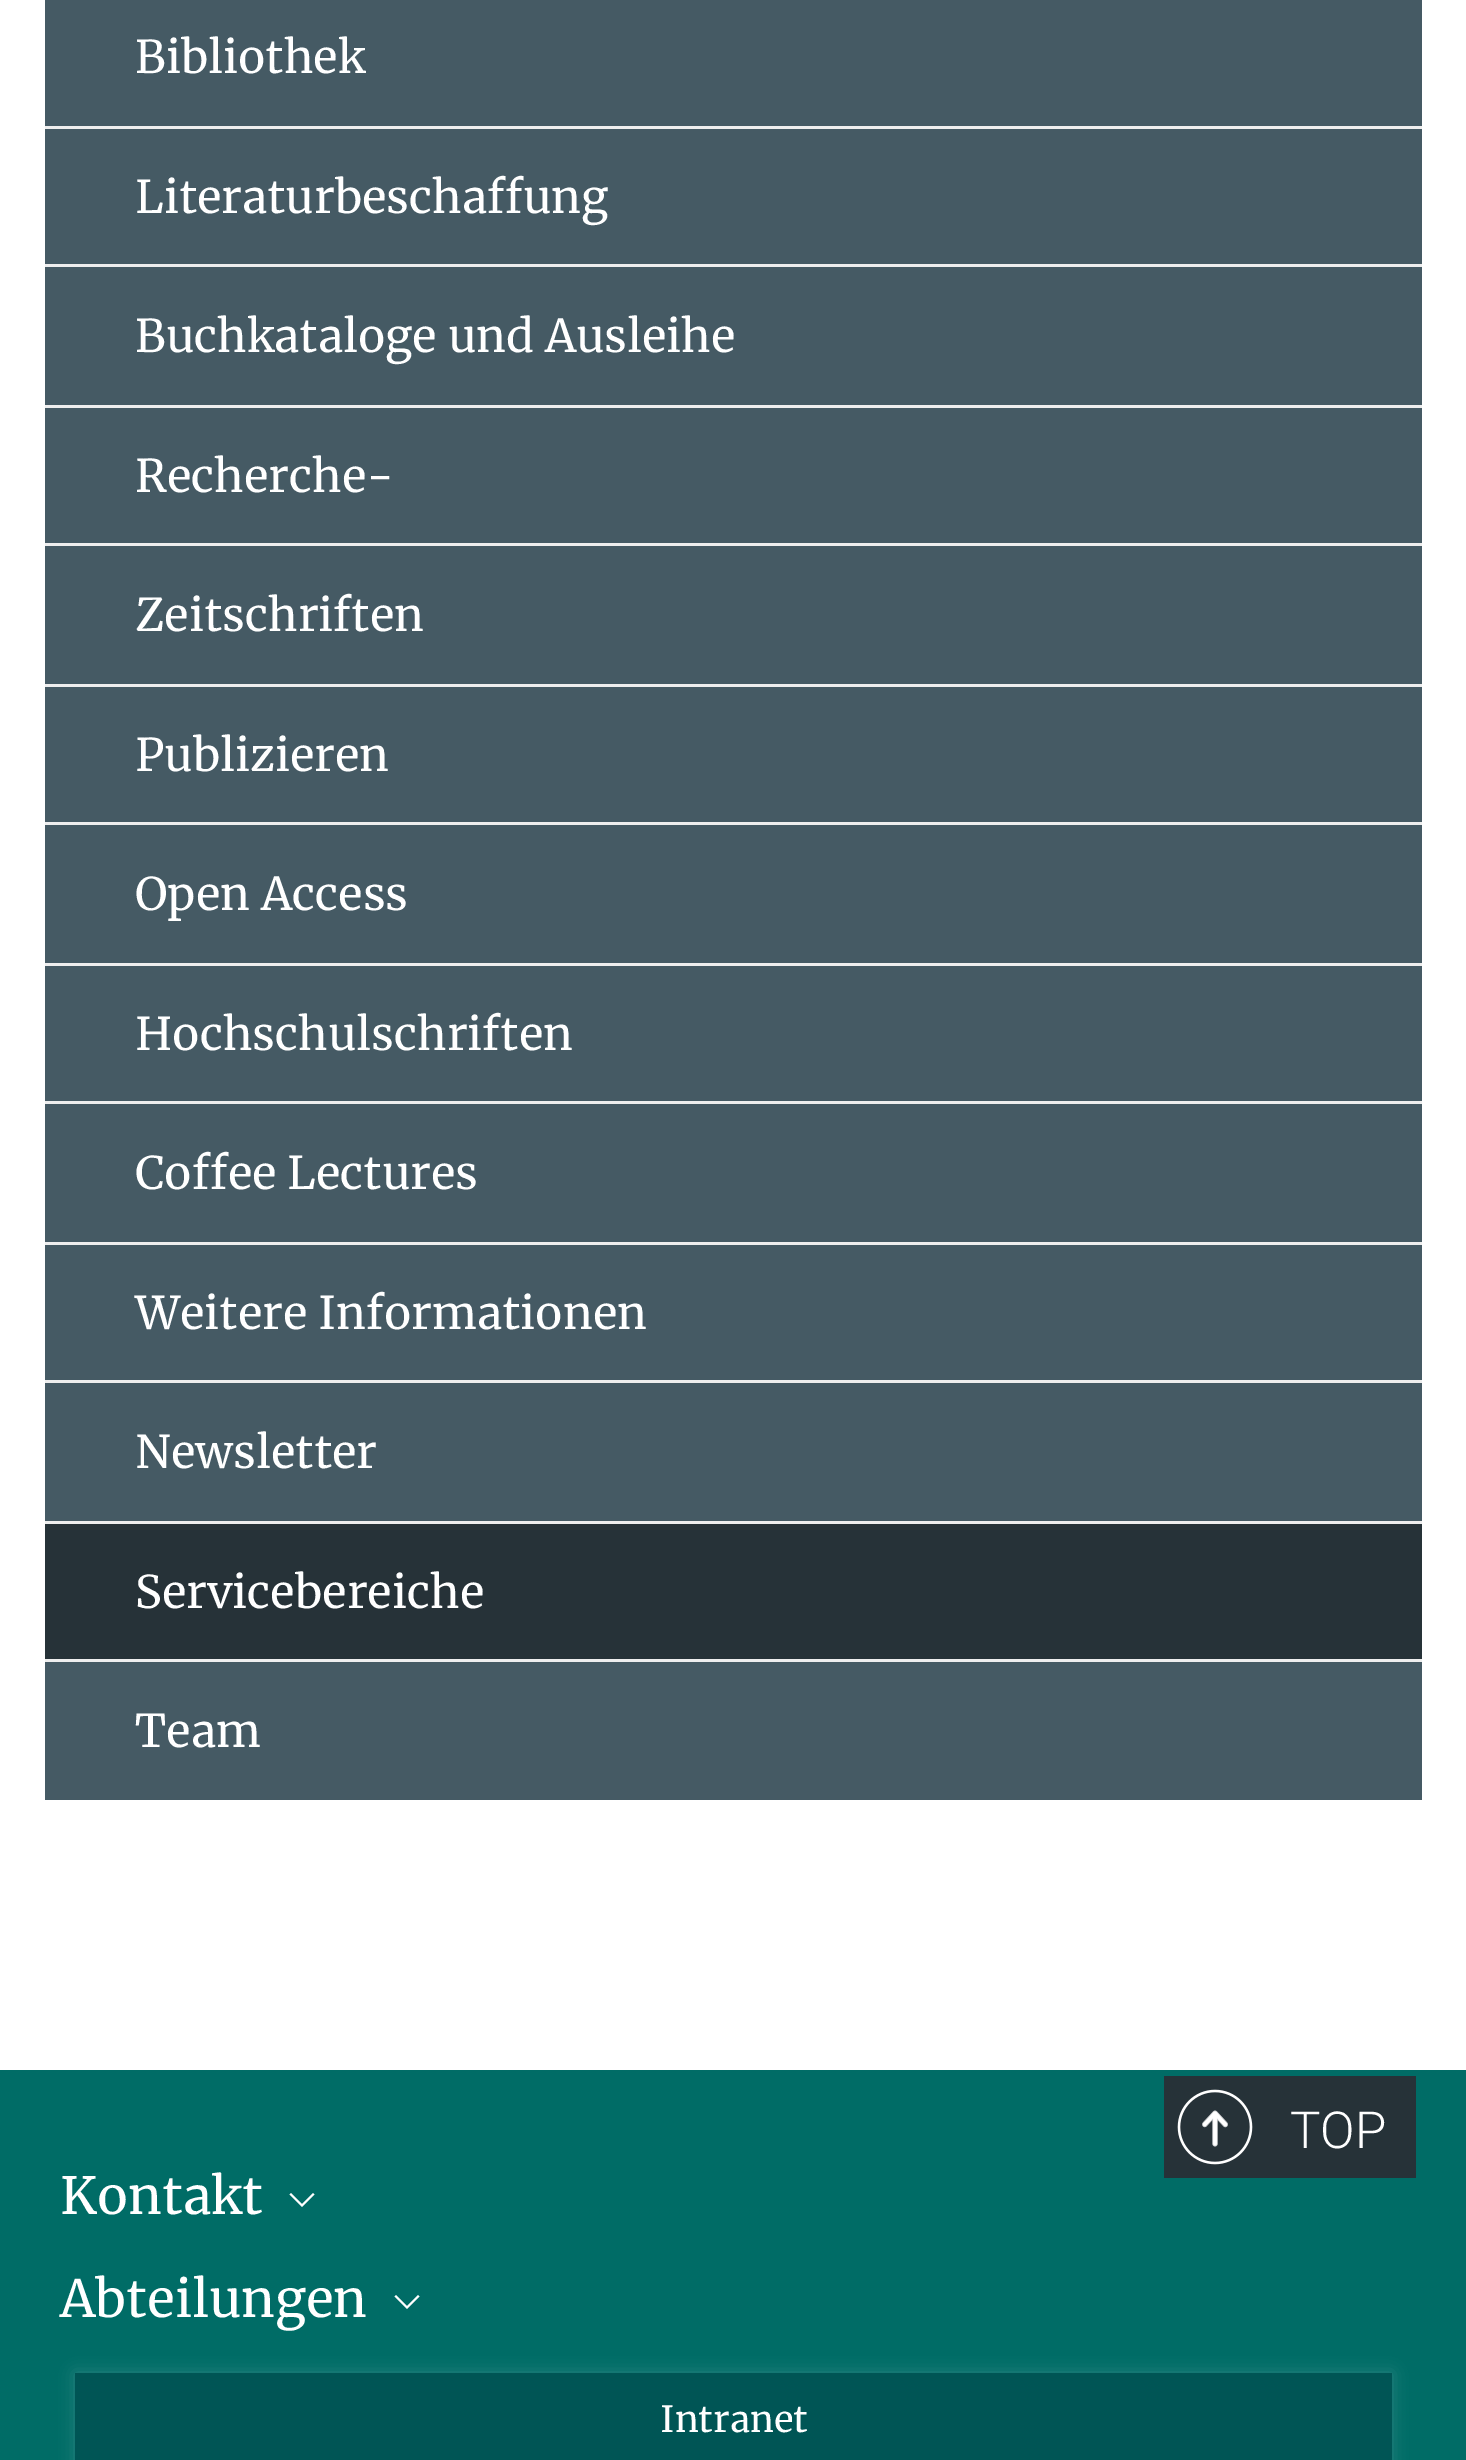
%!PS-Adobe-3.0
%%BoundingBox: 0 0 1466 2460
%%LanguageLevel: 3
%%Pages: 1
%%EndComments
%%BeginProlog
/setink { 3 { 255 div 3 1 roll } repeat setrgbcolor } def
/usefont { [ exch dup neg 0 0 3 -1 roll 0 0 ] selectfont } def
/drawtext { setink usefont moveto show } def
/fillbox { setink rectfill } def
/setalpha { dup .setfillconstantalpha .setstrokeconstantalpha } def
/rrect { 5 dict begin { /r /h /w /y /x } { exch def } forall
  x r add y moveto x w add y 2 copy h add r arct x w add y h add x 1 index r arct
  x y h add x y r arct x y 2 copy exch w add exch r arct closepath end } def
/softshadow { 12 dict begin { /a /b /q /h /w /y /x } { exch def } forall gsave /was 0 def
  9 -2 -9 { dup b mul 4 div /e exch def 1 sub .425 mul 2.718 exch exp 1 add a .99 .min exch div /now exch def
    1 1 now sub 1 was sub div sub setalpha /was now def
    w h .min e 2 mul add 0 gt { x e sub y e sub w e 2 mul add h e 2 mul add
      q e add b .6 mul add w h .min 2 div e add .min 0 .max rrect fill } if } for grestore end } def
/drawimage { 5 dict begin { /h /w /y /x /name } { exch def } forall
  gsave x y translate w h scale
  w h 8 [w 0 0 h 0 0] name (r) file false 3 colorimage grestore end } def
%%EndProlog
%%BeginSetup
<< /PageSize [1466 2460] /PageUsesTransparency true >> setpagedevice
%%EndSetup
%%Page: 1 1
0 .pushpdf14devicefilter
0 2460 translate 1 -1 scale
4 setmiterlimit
0 0 1466 2460 255 255 255 fillbox
45 0 1377 126 69 90 100 fillbox
45 126 1377 3 238 238 238 fillbox
(Bibliothek) 135 73 /Merriweather-Regular 45 255 255 255 drawtext
45 129 1377 135 69 90 100 fillbox
45 264 1377 3 238 238 238 fillbox
(Literaturbeschaffung) 135 213 /Merriweather-Regular 45 255 255 255 drawtext
45 267 1377 138 69 90 100 fillbox
45 405 1377 3 238 238 238 fillbox
(Buchkataloge und Ausleihe) 135 352 /Merriweather-Regular 45 255 255 255 drawtext
45 408 1377 135 69 90 100 fillbox
45 543 1377 3 238 238 238 fillbox
(Recherche-) 135 492 /Merriweather-Regular 45 255 255 255 drawtext
45 546 1377 138 69 90 100 fillbox
45 684 1377 3 238 238 238 fillbox
(Zeitschriften) 135 631 /Merriweather-Regular 45 255 255 255 drawtext
45 687 1377 135 69 90 100 fillbox
45 822 1377 3 238 238 238 fillbox
(Publizieren) 135 771 /Merriweather-Regular 45 255 255 255 drawtext
45 825 1377 138 69 90 100 fillbox
45 963 1377 3 238 238 238 fillbox
(Open Access) 135 910 /Merriweather-Regular 45 255 255 255 drawtext
45 966 1377 135 69 90 100 fillbox
45 1101 1377 3 238 238 238 fillbox
(Hochschulschriften) 135 1050 /Merriweather-Regular 45 255 255 255 drawtext
45 1104 1377 138 69 90 100 fillbox
45 1242 1377 3 238 238 238 fillbox
(Coffee Lectures) 135 1189 /Merriweather-Regular 45 255 255 255 drawtext
45 1245 1377 135 69 90 100 fillbox
45 1380 1377 3 238 238 238 fillbox
(Weitere Informationen) 135 1329 /Merriweather-Regular 45 255 255 255 drawtext
45 1383 1377 138 69 90 100 fillbox
45 1521 1377 3 238 238 238 fillbox
(Newsletter) 135 1468 /Merriweather-Regular 45 255 255 255 drawtext
45 1524 1377 135 38 50 56 fillbox
45 1659 1377 3 238 238 238 fillbox
(Servicebereiche) 135 1608 /Merriweather-Regular 45 255 255 255 drawtext
45 1662 1377 138 69 90 100 fillbox
(Team) 135 1747 /Merriweather-Regular 45 255 255 255 drawtext
0 2070 1466 390 0 108 102 fillbox
1164 2076 252 102 38 50 56 fillbox
(assets/img1.rgb) 1202 2110 26 37 drawimage
(assets/img2.rgb) 1177 2089 76 76 drawimage
(TOP) 1290 2148 /Roboto-Light 51 255 255 255 drawtext
(Kontakt) 60 2214 /Merriweather-Regular 51 255 255 255 drawtext
289.5 2194.5 moveto 291 2193 lineto 302 2204 lineto 313 2193 lineto 314.5 2194.5 lineto 302 2207 lineto closepath fill
(Abteilungen) 60 2317 /Merriweather-Regular 51 255 255 255 drawtext
394.5 2296.5 moveto 396 2295 lineto 407 2306 lineto 418 2295 lineto 419.5 2296.5 lineto 407 2309 lineto closepath fill
75 2373 1317 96 0 7.5 0.15 softshadow
75 2373 1317 87 0 85 85 fillbox
(Intranet) 660 2432 /Merriweather-Regular 36 255 255 255 drawtext
.poppdf14devicefilter showpage
%%EOF
